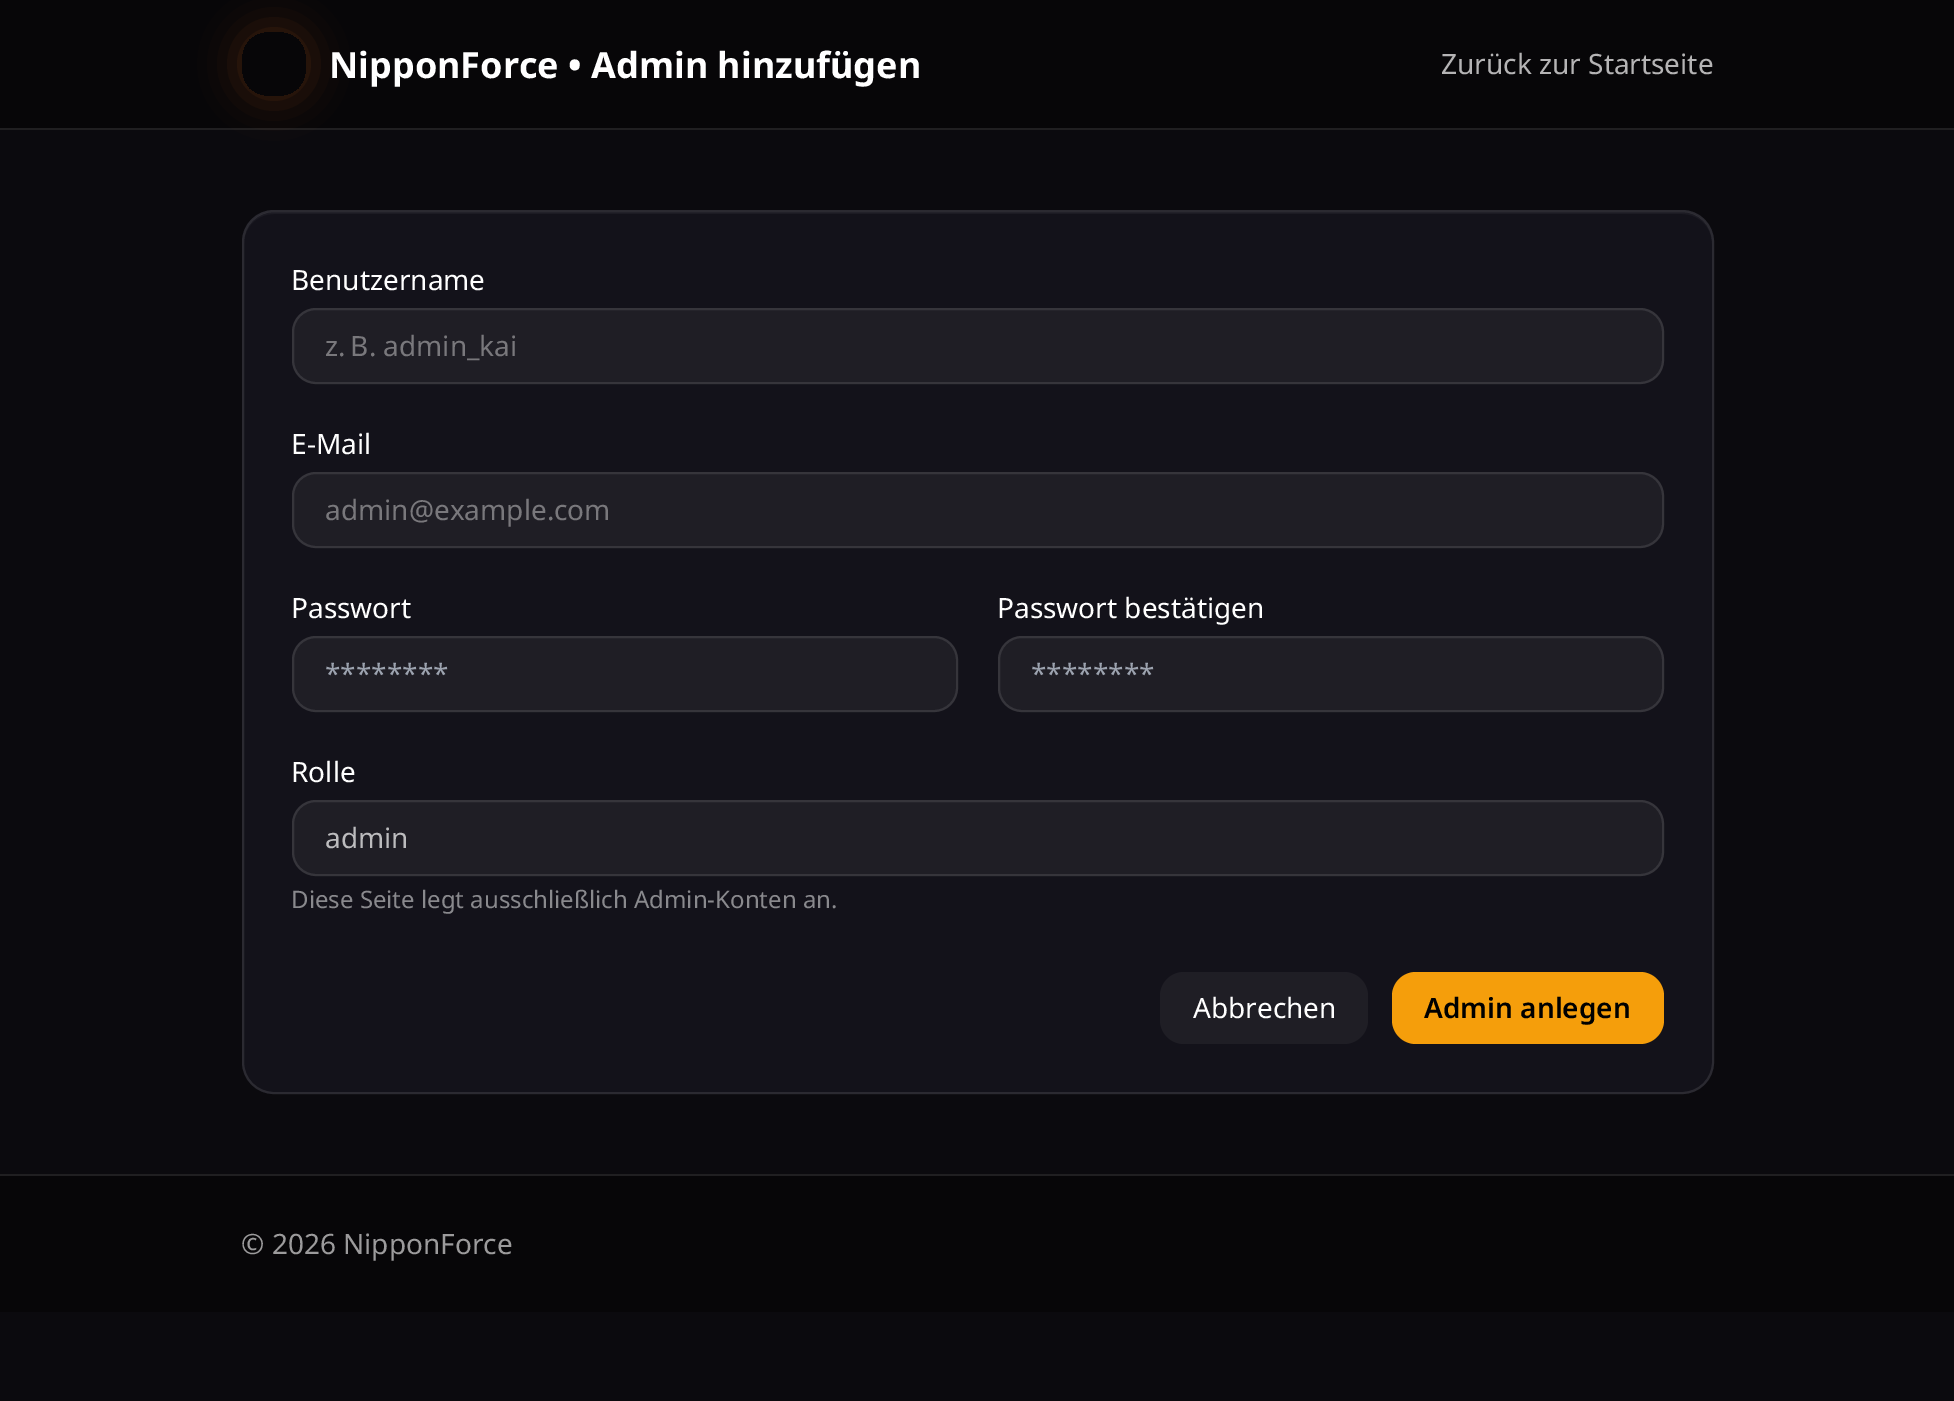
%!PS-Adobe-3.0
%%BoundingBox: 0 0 1954 1401
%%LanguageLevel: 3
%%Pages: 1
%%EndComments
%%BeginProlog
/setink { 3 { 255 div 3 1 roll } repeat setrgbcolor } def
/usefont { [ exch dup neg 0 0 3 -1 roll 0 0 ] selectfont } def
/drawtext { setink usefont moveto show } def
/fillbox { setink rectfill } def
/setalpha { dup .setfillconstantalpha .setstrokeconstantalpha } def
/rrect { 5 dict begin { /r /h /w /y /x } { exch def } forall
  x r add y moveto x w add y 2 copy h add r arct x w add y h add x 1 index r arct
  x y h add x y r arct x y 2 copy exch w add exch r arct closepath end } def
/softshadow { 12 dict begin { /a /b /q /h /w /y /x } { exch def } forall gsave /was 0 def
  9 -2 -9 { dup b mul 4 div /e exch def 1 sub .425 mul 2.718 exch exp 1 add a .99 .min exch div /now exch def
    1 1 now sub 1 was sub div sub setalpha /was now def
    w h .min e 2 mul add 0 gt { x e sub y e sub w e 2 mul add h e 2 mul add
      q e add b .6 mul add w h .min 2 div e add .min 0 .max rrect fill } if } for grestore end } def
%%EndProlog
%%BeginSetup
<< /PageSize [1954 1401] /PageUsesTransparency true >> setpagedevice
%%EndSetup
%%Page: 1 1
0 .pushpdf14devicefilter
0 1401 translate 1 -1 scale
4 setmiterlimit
0 0 1954 1401 11 10 14 fillbox
0 0 1954 128 7 6 8 fillbox
0 128 1954 2 32 31 33 fillbox
gsave
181 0 moveto 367 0 lineto 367 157 lineto 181 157 lineto closepath 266 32 moveto 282 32 lineto 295.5 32 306 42.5 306 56 curveto 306 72 lineto 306 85.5 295.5 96 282 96 curveto 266 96 lineto 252.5 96 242 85.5 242 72 curveto 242 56 lineto 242 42.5 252.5 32 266 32 curveto closepath eoclip newpath
249 115 22 setink
242 32 64 64 24 20 0.25 softshadow
grestore
(NipponForce • Admin hinzufügen) 329 78 /NotoSans-Bold 36 255 255 255 drawtext
(Zurück zur Startseite) 1441 74 /NotoSans-Regular 28 181 180 181 drawtext
19 18 26 setink
242 210 1472 884 32 rrect fill
28 27 35 setink
274 214 moveto 1682 214 lineto 1699 214 1712 227 1712 244 curveto 1712 227 1700 212 1682 212 curveto 274 212 lineto 256 212 244 227 244 244 curveto 244 227 257 214 274 214 curveto closepath fill
0.1 setalpha
255 255 255 setink
2 setlinewidth
243 211 1470 882 31 rrect stroke
1 setalpha
(Benutzername) 291 290 /NotoSans-Regular 28 255 255 255 drawtext
31 30 37 setink
292 308 1372 76 24 rrect fill
0.1 setalpha
255 255 255 setink
293 309 1370 74 23 rrect stroke
1 setalpha
(z. B. admin_kai) 325 356 /NotoSans-Regular 28 121 120 124 drawtext
(E‑Mail) 291 454 /NotoSans-Regular 28 255 255 255 drawtext
31 30 37 setink
292 472 1372 76 24 rrect fill
0.1 setalpha
255 255 255 setink
293 473 1370 74 23 rrect stroke
1 setalpha
(admin@example.com) 325 520 /NotoSans-Regular 28 121 120 124 drawtext
(Passwort) 291 618 /NotoSans-Regular 28 255 255 255 drawtext
31 30 37 setink
292 636 666 76 24 rrect fill
0.1 setalpha
255 255 255 setink
293 637 664 74 23 rrect stroke
1 setalpha
(********) 325 684 /NotoSans-Regular 28 156 163 175 drawtext
(Passwort bestätigen) 997 618 /NotoSans-Regular 28 255 255 255 drawtext
31 30 37 setink
998 636 666 76 24 rrect fill
0.1 setalpha
255 255 255 setink
999 637 664 74 23 rrect stroke
1 setalpha
(********) 1031 684 /NotoSans-Regular 28 156 163 175 drawtext
(Rolle) 291 782 /NotoSans-Regular 28 255 255 255 drawtext
31 30 37 setink
292 800 1372 76 24 rrect fill
0.1 setalpha
255 255 255 setink
293 801 1370 74 23 rrect stroke
1 setalpha
(admin) 325 848 /NotoSans-Regular 28 188 188 190 drawtext
(Diese Seite legt ausschließlich Admin‑Konten an.) 291 908 /NotoSans-Regular 24 137 137 141 drawtext
31 30 37 setink
1160 972 208 72 24 rrect fill
(Abbrechen) 1193 1018 /NotoSans-Regular 28 255 255 255 drawtext
245 158 11 setink
1392 972 272 72 24 rrect fill
(Admin anlegen) 1424 1018 /NotoSans-SemiBold 28 0 0 0 drawtext
0 1176 1954 136 7 6 8 fillbox
0 1174 1954 2 32 31 33 fillbox
(© 2026 NipponForce) 241 1254 /NotoSans-Regular 28 156 155 156 drawtext
.poppdf14devicefilter showpage
%%EOF
